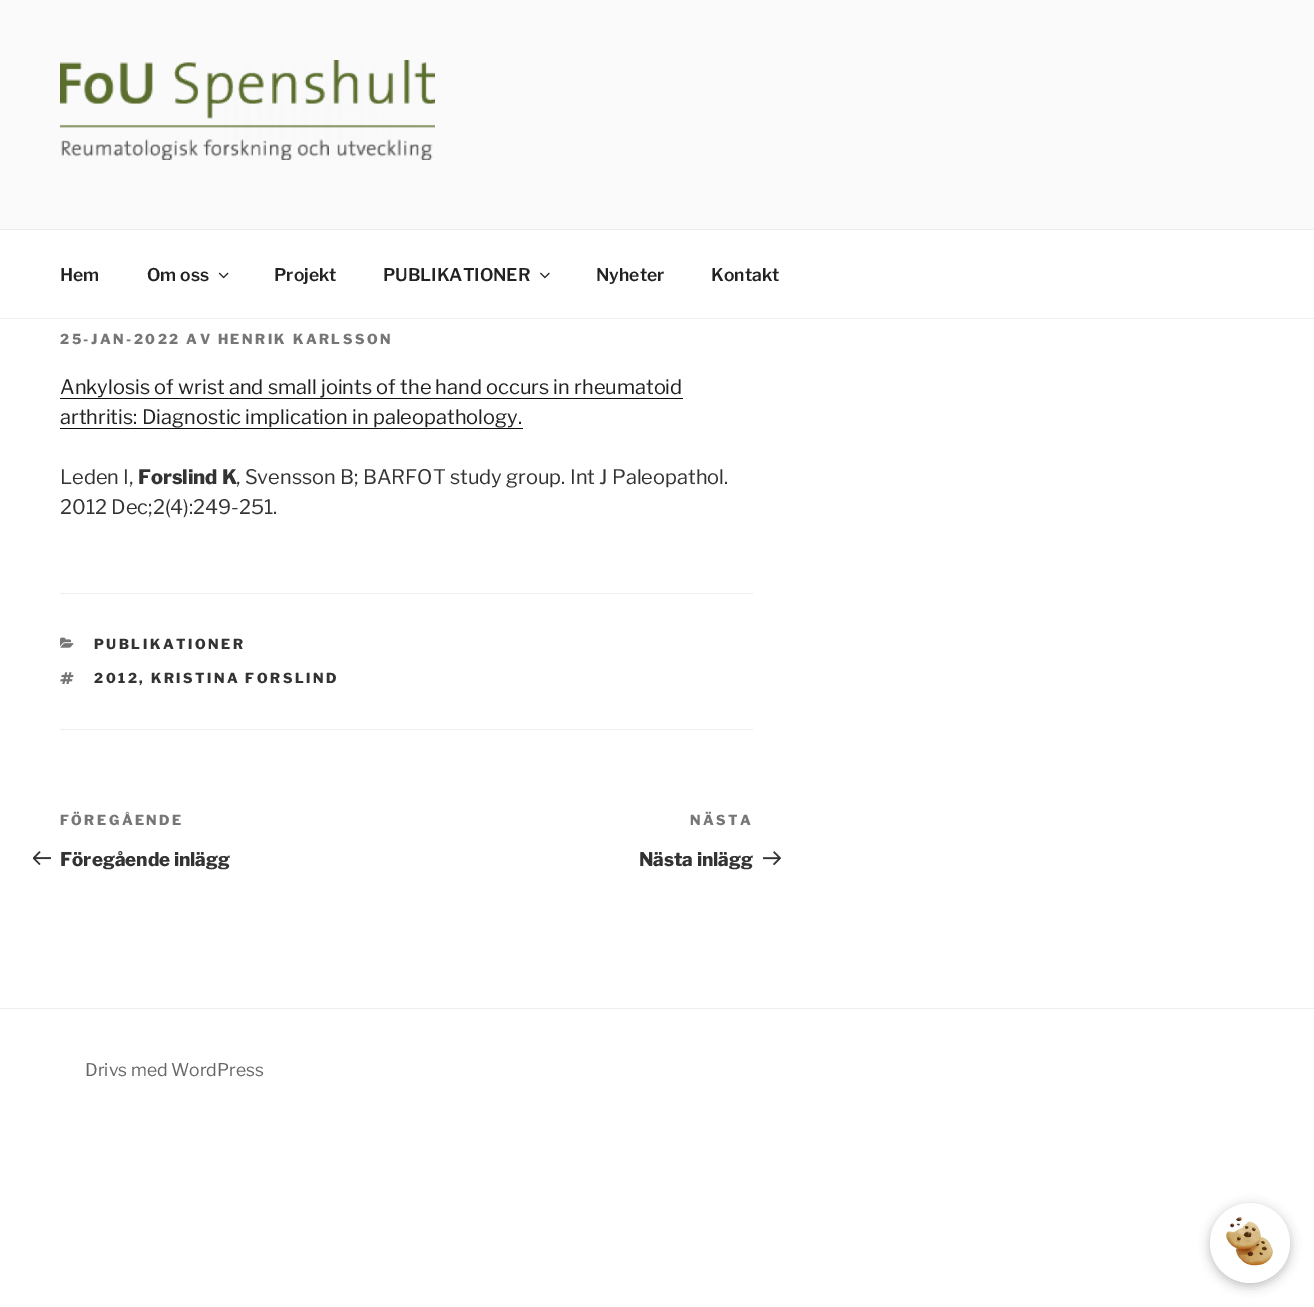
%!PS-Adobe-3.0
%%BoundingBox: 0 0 1314 1307
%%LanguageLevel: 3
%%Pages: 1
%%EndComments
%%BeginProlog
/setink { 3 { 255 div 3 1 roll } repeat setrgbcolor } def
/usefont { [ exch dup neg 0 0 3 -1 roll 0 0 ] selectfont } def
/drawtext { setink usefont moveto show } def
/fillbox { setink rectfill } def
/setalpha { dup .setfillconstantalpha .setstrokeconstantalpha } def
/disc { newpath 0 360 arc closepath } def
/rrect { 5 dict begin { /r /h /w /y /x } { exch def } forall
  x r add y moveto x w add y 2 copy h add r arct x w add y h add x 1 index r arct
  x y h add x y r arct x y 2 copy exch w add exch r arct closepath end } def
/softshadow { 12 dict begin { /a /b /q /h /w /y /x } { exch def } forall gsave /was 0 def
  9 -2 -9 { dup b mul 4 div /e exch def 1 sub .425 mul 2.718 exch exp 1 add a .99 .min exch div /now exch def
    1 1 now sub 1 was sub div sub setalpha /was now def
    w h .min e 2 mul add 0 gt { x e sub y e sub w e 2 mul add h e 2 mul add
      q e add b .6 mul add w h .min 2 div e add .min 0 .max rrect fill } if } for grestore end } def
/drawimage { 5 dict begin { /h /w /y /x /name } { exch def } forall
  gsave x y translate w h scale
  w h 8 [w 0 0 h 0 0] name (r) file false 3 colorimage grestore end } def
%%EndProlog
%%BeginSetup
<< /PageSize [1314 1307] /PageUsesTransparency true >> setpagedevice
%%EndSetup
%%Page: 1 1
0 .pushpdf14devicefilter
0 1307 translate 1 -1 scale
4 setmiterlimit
0 0 1314 1307 255 255 255 fillbox
0 0 1314 229 250 250 250 fillbox
(assets/img1.rgb) 60 60 375 100 drawimage
0 229 1314 1 238 238 238 fillbox
0 318 1314 1 238 238 238 fillbox
(Hem) 60 281 /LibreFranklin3-Thin 17.5 34 34 34 drawtext
(Om oss) 147 281 /LibreFranklin3-Thin 17.5 34 34 34 drawtext
(assets/img2.rgb) 218 272 11 7 drawimage
(Projekt) 274 281 /LibreFranklin3-Thin 17.5 34 34 34 drawtext
(PUBLIKATIONER) 383 281 /LibreFranklin3-Thin 17.5 34 34 34 drawtext
(assets/img3.rgb) 540 272 10 7 drawimage
(Nyheter) 596 281 /LibreFranklin3-Thin 17.5 34 34 34 drawtext
(Kontakt) 711 281 /LibreFranklin3-Thin 17.5 34 34 34 drawtext
/LibreFranklin-Thin 13.75 usefont
118 118 118 setink
60 344 moveto 2.5 0 (25-JAN-2022 AV HENRIK KARLSSON) ashow
(Ankylosis of wrist and small joints of the hand occurs in rheumatoid) 60 394 /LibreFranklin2-Thin 20 34 34 34 drawtext
60 398 623 1 15 15 15 fillbox
(arthritis: Diagnostic implication in paleopathology.) 60 424 /LibreFranklin2-Thin 20 34 34 34 drawtext
60 428 463 1 15 15 15 fillbox
(Leden I,) 60 484 /LibreFranklin2-Thin 20 51 51 51 drawtext
(Forslind K) 138 484 /LibreFranklin-Thin 20 51 51 51 drawtext
(, Svensson B; BARFOT study group. Int J Paleopathol.) 236 484 /LibreFranklin2-Thin 20 51 51 51 drawtext
(2012 Dec;2\(4\):249-251.) 60 514 /LibreFranklin2-Thin 20 51 51 51 drawtext
60 593 693 1 238 238 238 fillbox
60 729 693 1 238 238 238 fillbox
(assets/img4.rgb) 60 637 14 11 drawimage
/LibreFranklin-Thin 13.75 usefont
51 51 51 setink
94 649 moveto 2.5 0 (PUBLIKATIONER) ashow
(assets/img5.rgb) 60 672 14 12 drawimage
94 683 moveto 2.5 0 (2012, KRISTINA FORSLIND) ashow
118 118 118 setink
60 825 moveto 2.5 0 (FÖREGÅENDE) ashow
(assets/img6.rgb) 33 851 18 14 drawimage
(Föregående inlägg) 60 866 /LibreFranklin-Thin 18.75 51 51 51 drawtext
/LibreFranklin-Thin 13.75 usefont
118 118 118 setink
690 825 moveto 2.5 0 (NÄSTA) ashow
(Nästa inlägg) 639 866 /LibreFranklin-Thin 18.75 51 51 51 drawtext
(assets/img7.rgb) 763 851 18 15 drawimage
0 1008 1314 1 238 238 238 fillbox
(Drivs med WordPress) 85 1076 /LibreFranklin2-Thin 17.5 102 102 102 drawtext
0 0 0 setink
1210 1206 80 80 40 5.5 0.25 softshadow
255 255 255 setink
1250 1243 40 disc fill
(assets/img8.rgb) 1226 1216 47 50 drawimage
.poppdf14devicefilter showpage
%%EOF
